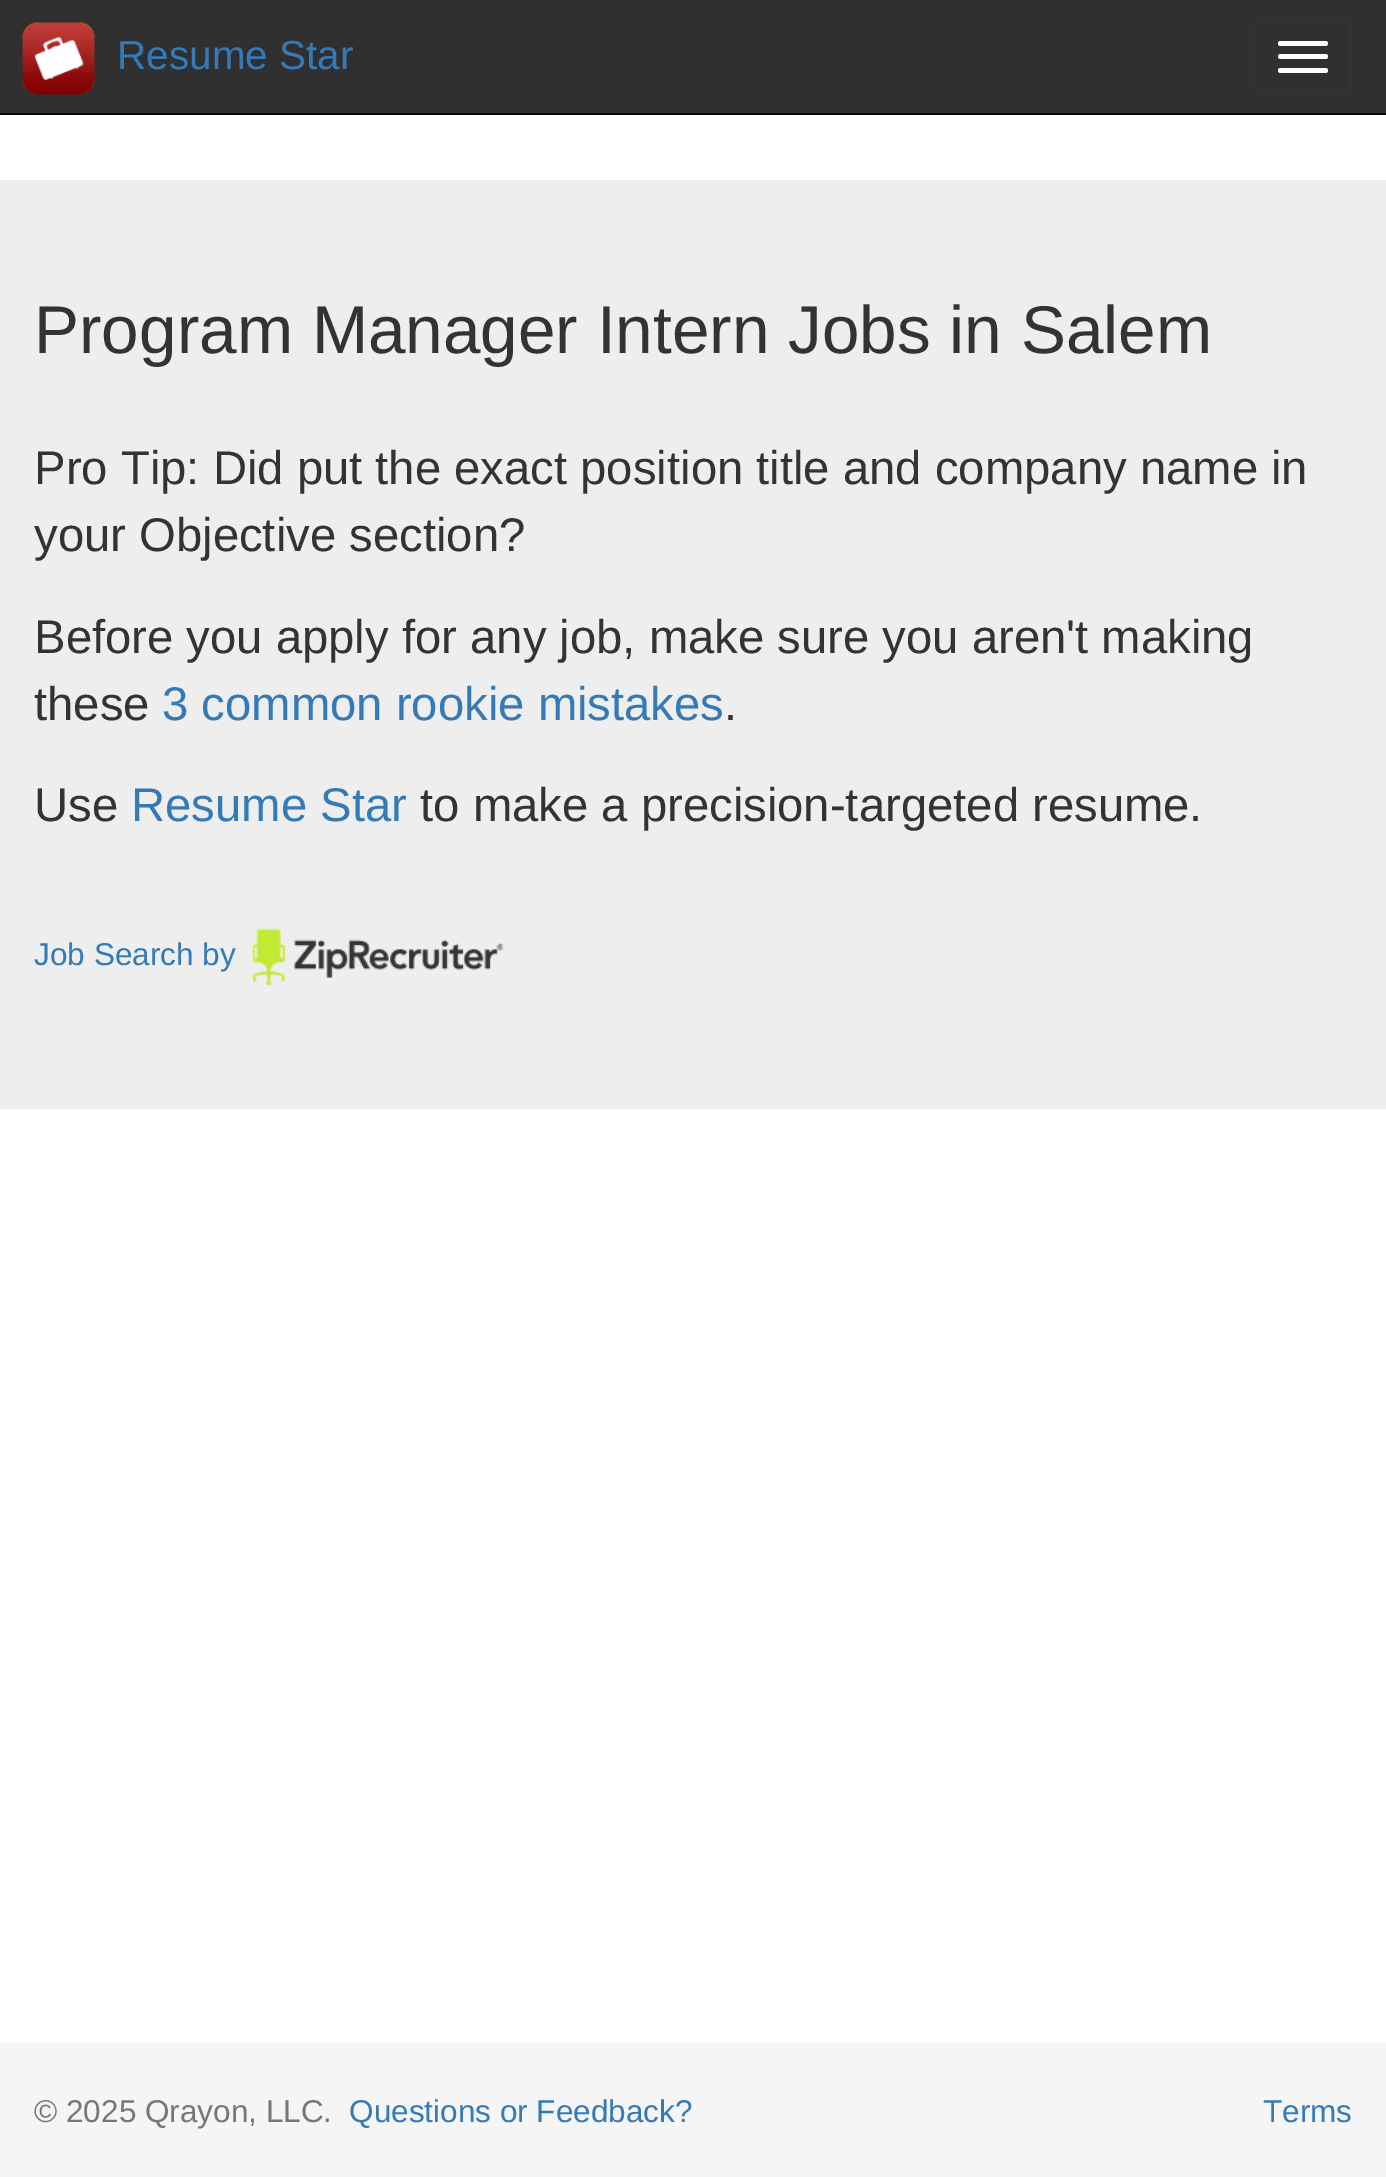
%!PS-Adobe-3.0
%%BoundingBox: 0 0 1386 2177
%%LanguageLevel: 3
%%Pages: 1
%%EndComments
%%BeginProlog
/setink { 3 { 255 div 3 1 roll } repeat setrgbcolor } def
/usefont { [ exch dup neg 0 0 3 -1 roll 0 0 ] selectfont } def
/drawtext { setink usefont moveto show } def
/fillbox { setink rectfill } def
/rrect { 5 dict begin { /r /h /w /y /x } { exch def } forall
  x r add y moveto x w add y 2 copy h add r arct x w add y h add x 1 index r arct
  x y h add x y r arct x y 2 copy exch w add exch r arct closepath end } def
/drawimage { 5 dict begin { /h /w /y /x /name } { exch def } forall
  gsave x y translate w h scale
  w h 8 [w 0 0 h 0 0] name (r) file false 3 colorimage grestore end } def
%%EndProlog
%%BeginSetup
<< /PageSize [1386 2177] >> setpagedevice
%%EndSetup
%%Page: 1 1
0 2177 translate 1 -1 scale
4 setmiterlimit
0 0 1386 2177 255 255 255 fillbox
0 0 1386 113 48 48 48 fillbox
0 113 1386 2 8 8 8 fillbox
(assets/img1.rgb) 22 22 73 73 drawimage
(Resume Star) 117 69 /LiberationSans-Regular 40.5 51 122 183 drawtext
51 51 51 setink
2 setlinewidth
1254 19 97 75 8 rrect stroke
255 255 255 setink
1278 41 50 5 2.5 rrect fill
1278 54 50 5 2.5 rrect fill
1278 68 50 5 2.5 rrect fill
0 180 1386 929 238 238 238 fillbox
(Program Manager Intern Jobs in Salem) 34 353 /LiberationSans-Regular 67.5 51 51 51 drawtext
(Pro Tip: Did put the exact position title and company name in) 34 484 /LiberationSans-Regular 47.25 51 51 51 drawtext
(your Objective section?) 34 551 /LiberationSans-Regular 47.25 51 51 51 drawtext
(Before you apply for any job, make sure you aren't making) 34 653 /LiberationSans-Regular 47.25 51 51 51 drawtext
(these) 34 720 /LiberationSans-Regular 47.25 51 51 51 drawtext
(3 common rookie mistakes) 162 720 /LiberationSans-Regular 47.25 51 122 183 drawtext
(.) 724 720 /LiberationSans-Regular 47.25 51 51 51 drawtext
(Use) 34 821 /LiberationSans-Regular 47.25 51 51 51 drawtext
(Resume Star) 131 821 /LiberationSans-Regular 47.25 51 122 183 drawtext
(to make a precision-targeted resume.) 420 821 /LiberationSans-Regular 47.25 51 51 51 drawtext
(Job Search by) 34 965 /LiberationSans-Regular 31.5 51 122 183 drawtext
(assets/img2.rgb) 252 928 252 58 drawimage
0 2043 1386 134 245 245 245 fillbox
(© 2025 Qrayon, LLC.) 34 2122 /LiberationSans-Regular 31.5 119 119 119 drawtext
(Questions or Feedback?) 349 2122 /LiberationSans-Regular 31.5 51 122 183 drawtext
(Terms) 1263 2122 /LiberationSans-Regular 31.5 51 122 183 drawtext
showpage
%%EOF
